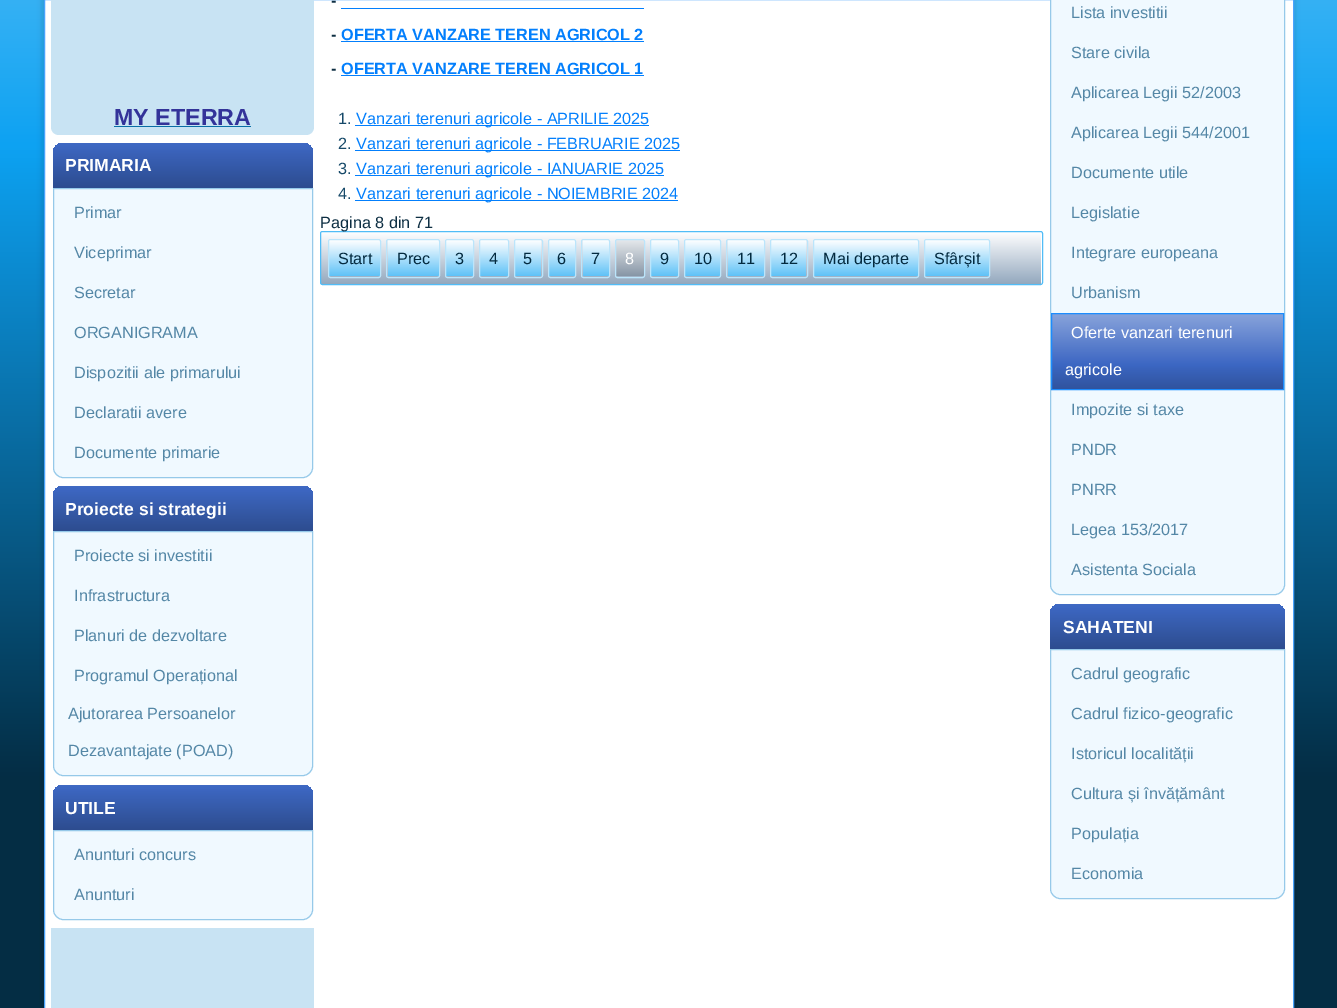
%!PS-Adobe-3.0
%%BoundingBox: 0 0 1337 1008
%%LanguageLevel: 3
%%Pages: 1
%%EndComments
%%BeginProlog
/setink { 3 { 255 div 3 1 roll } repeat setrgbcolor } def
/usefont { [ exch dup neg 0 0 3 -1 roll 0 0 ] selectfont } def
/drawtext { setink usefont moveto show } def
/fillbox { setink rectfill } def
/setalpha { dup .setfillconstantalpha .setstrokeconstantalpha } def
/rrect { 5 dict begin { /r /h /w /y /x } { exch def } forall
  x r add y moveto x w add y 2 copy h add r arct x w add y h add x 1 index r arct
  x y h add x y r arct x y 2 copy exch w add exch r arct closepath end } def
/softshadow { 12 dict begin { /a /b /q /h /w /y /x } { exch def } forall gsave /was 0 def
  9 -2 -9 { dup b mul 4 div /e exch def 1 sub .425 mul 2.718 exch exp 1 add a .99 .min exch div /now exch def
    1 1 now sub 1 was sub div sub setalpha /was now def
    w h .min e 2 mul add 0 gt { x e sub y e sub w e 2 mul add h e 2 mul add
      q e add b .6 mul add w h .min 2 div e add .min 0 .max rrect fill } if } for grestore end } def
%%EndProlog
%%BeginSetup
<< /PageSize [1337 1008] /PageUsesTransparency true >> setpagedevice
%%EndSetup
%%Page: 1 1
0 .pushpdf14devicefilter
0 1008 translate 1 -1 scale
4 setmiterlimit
0 0 1337 1008 255 255 255 fillbox
gsave 0 0 moveto 1337 0 lineto 1337 1008 lineto 0 1008 lineto closepath clip newpath
<< /ShadingType 2 /ColorSpace /DeviceRGB /Coords [669 -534 669 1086] /Extend [true true] /Function << /FunctionType 3 /Domain [0 1] /Functions [<< /FunctionType 2 /Domain [0 1] /C0 [0.773 0.914 0.988] /C1 [0.051 0.635 0.949] /N 1 >> << /FunctionType 2 /Domain [0 1] /C0 [0.051 0.635 0.949] /C1 [0.016 0.176 0.267] /N 1 >> << /FunctionType 2 /Domain [0 1] /C0 [0.016 0.176 0.267] /C1 [0.016 0.176 0.267] /N 1 >>] /Bounds [0.42 0.81] /Encode [0 1 0 1 0 1] >> >> shfill grestore
0 0 0 setink
41 -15 1255 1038 9 2 0.1 softshadow
255 255 255 setink
44.5 -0.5 moveto 1293.5 -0.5 lineto 1293.5 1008.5 lineto 44.5 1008.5 lineto closepath gsave fill grestore
73 163 253 setink
stroke
200 227 243 setink
51 -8 moveto 314 -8 lineto 314 127 lineto 314 131.5 310.5 135 306 135 curveto 59 135 lineto 54.5 135 51 131.5 51 127 curveto closepath fill
(MY ETERRA) 114 125 /LiberationSans-Bold 23.25 51 51 153 drawtext
114 126 137 1 9 110 165 fillbox
gsave 63 143 moveto 303 143 lineto 308.5 143 313 147.5 313 153 curveto 313 188 lineto 53 188 lineto 53 153 lineto 53 147.5 57.5 143 63 143 curveto closepath clip newpath
<< /ShadingType 2 /ColorSpace /DeviceRGB /Coords [183 142 183 188] /Extend [true true] /Function << /FunctionType 3 /Domain [0 1] /Functions [<< /FunctionType 2 /Domain [0 1] /C0 [0.255 0.416 0.765] /C1 [0.239 0.404 0.761] /N 1 >> << /FunctionType 2 /Domain [0 1] /C0 [0.239 0.404 0.761] /C1 [0.176 0.298 0.561] /N 1 >>] /Bounds [0.07] /Encode [0 1 0 1] >> >> shfill grestore
(PRIMARIA) 65 171 /LiberationSans-Bold 17.5 255 255 255 drawtext
240 249 255 setink
53.5 188.5 moveto 312.5 188.5 lineto 312.5 468 lineto 312.5 473 308 477.5 303 477.5 curveto 63 477.5 lineto 58 477.5 53.5 473 53.5 468 curveto closepath gsave fill grestore
150 201 233 setink
stroke
(Primar) 74 218 /LiberationSans-Regular 16.25 84 135 166 drawtext
(Viceprimar) 74 258 /LiberationSans-Regular 16.25 84 135 166 drawtext
(Secretar) 74 298 /LiberationSans-Regular 16.25 84 135 166 drawtext
(ORGANIGRAMA) 74 338 /LiberationSans-Regular 16.25 84 135 166 drawtext
(Dispozitii ale primarului) 74 378 /LiberationSans-Regular 16.25 84 135 166 drawtext
(Declaratii avere) 74 418 /LiberationSans-Regular 16.25 84 135 166 drawtext
(Documente primarie) 74 458 /LiberationSans-Regular 16.25 84 135 166 drawtext
gsave 63 486 moveto 303 486 lineto 308.5 486 313 490.5 313 496 curveto 313 531 lineto 53 531 lineto 53 496 lineto 53 490.5 57.5 486 63 486 curveto closepath clip newpath
<< /ShadingType 2 /ColorSpace /DeviceRGB /Coords [183 486 183 531] /Extend [true true] /Function << /FunctionType 3 /Domain [0 1] /Functions [<< /FunctionType 2 /Domain [0 1] /C0 [0.255 0.416 0.765] /C1 [0.239 0.404 0.761] /N 1 >> << /FunctionType 2 /Domain [0 1] /C0 [0.239 0.404 0.761] /C1 [0.176 0.298 0.561] /N 1 >>] /Bounds [0.07] /Encode [0 1 0 1] >> >> shfill grestore
(Proiecte si strategii) 65 515 /LiberationSans-Bold 17.5 255 255 255 drawtext
240 249 255 setink
53.5 531.5 moveto 312.5 531.5 lineto 312.5 766 lineto 312.5 771 308 775.5 303 775.5 curveto 63 775.5 lineto 58 775.5 53.5 771 53.5 766 curveto closepath gsave fill grestore
150 201 233 setink
stroke
(Proiecte si investitii) 74 561 /LiberationSans-Regular 16.25 84 135 166 drawtext
(Infrastructura) 74 601 /LiberationSans-Regular 16.25 84 135 166 drawtext
(Planuri de dezvoltare) 74 641 /LiberationSans-Regular 16.25 84 135 166 drawtext
(Programul Operațional) 74 681 /LiberationSans-Regular 16.25 84 135 166 drawtext
(Ajutorarea Persoanelor) 68 719 /LiberationSans-Regular 16.25 84 135 166 drawtext
(Dezavantajate \(POAD\)) 68 756 /LiberationSans-Regular 16.25 84 135 166 drawtext
gsave 63 785 moveto 303 785 lineto 308.5 785 313 789.5 313 795 curveto 313 830 lineto 53 830 lineto 53 795 lineto 53 789.5 57.5 785 63 785 curveto closepath clip newpath
<< /ShadingType 2 /ColorSpace /DeviceRGB /Coords [183 785 183 830] /Extend [true true] /Function << /FunctionType 3 /Domain [0 1] /Functions [<< /FunctionType 2 /Domain [0 1] /C0 [0.255 0.416 0.765] /C1 [0.239 0.404 0.761] /N 1 >> << /FunctionType 2 /Domain [0 1] /C0 [0.239 0.404 0.761] /C1 [0.176 0.298 0.561] /N 1 >>] /Bounds [0.07] /Encode [0 1 0 1] >> >> shfill grestore
(UTILE) 65 814 /LiberationSans-Bold 17.5 255 255 255 drawtext
240 249 255 setink
53.5 830.5 moveto 312.5 830.5 lineto 312.5 910 lineto 312.5 915 308 919.5 303 919.5 curveto 63 919.5 lineto 58 919.5 53.5 915 53.5 910 curveto closepath gsave fill grestore
150 201 233 setink
stroke
(Anunturi concurs) 74 860 /LiberationSans-Regular 16.25 84 135 166 drawtext
(Anunturi) 74 900 /LiberationSans-Regular 16.25 84 135 166 drawtext
51 928 263 80 200 227 243 fillbox
(-) 331 6 /LiberationSans-Bold 16.25 14 47 67 drawtext
341 8 303 1 3 127 252 fillbox
(-) 331 40 /LiberationSans-Bold 16.25 14 47 67 drawtext
(OFERTA VANZARE TEREN AGRICOL 2) 341 40 /LiberationSans-Bold 16.25 3 127 252 drawtext
341 41 303 1 3 127 252 fillbox
(-) 331 74 /LiberationSans-Bold 16.25 14 47 67 drawtext
(OFERTA VANZARE TEREN AGRICOL 1) 341 74 /LiberationSans-Bold 16.25 3 127 252 drawtext
341 75 303 1 3 127 252 fillbox
(1.) 338 124 /LiberationSans-Regular 16.25 22 73 105 drawtext
355 125 294 1 3 127 252 fillbox
(Vanzari terenuri agricole - APRILIE 2025) 356 124 /LiberationSans-Regular 16.25 3 127 252 drawtext
(2.) 338 149 /LiberationSans-Regular 16.25 22 73 105 drawtext
355 150 325 1 3 127 252 fillbox
(Vanzari terenuri agricole - FEBRUARIE 2025) 356 149 /LiberationSans-Regular 16.25 3 127 252 drawtext
(3.) 338 174 /LiberationSans-Regular 16.25 22 73 105 drawtext
355 175 309 1 3 127 252 fillbox
(Vanzari terenuri agricole - IANUARIE 2025) 356 174 /LiberationSans-Regular 16.25 3 127 252 drawtext
(4.) 338 199 /LiberationSans-Regular 16.25 22 73 105 drawtext
355 200 323 1 3 127 252 fillbox
(Vanzari terenuri agricole - NOIEMBRIE 2024) 356 199 /LiberationSans-Regular 16.25 3 127 252 drawtext
gsave 321 233 moveto 1041 233 lineto 1041 284 lineto 321 284 lineto closepath clip newpath
<< /ShadingType 2 /ColorSpace /DeviceRGB /Coords [681 232 681 284] /Extend [true true] /Function << /FunctionType 2 /Domain [0 1] /C0 [1 1 1] /C1 [0.576 0.659 0.745] /N 1 >> >> shfill grestore
81 188 246 setink
320.5 231.5 722 53 2 rrect stroke
(Pagina 8 din 71) 320 228 /LiberationSans-Regular 16.25 14 47 67 drawtext
gsave 329 240 moveto 380 240 lineto 380 276 lineto 329 276 lineto closepath clip newpath
<< /ShadingType 2 /ColorSpace /DeviceRGB /Coords [354 240 354 276] /Extend [true true] /Function << /FunctionType 2 /Domain [0 1] /C0 [1 1 1] /C1 [0.373 0.761 0.969] /N 1 >> >> shfill grestore
187 229 251 setink
328.5 239.5 52 38 2 rrect stroke
(Start) 338 264 /LiberationSans-Regular 16.25 3 42 63 drawtext
gsave 388 240 moveto 439 240 lineto 439 276 lineto 388 276 lineto closepath clip newpath
<< /ShadingType 2 /ColorSpace /DeviceRGB /Coords [413 240 413 276] /Extend [true true] /Function << /FunctionType 2 /Domain [0 1] /C0 [1 1 1] /C1 [0.373 0.761 0.969] /N 1 >> >> shfill grestore
187 229 251 setink
386.5 239.5 53 38 2 rrect stroke
(Prec) 397 264 /LiberationSans-Regular 16.25 3 42 63 drawtext
gsave 446 240 moveto 473 240 lineto 473 276 lineto 446 276 lineto closepath clip newpath
<< /ShadingType 2 /ColorSpace /DeviceRGB /Coords [459 240 459 276] /Extend [true true] /Function << /FunctionType 2 /Domain [0 1] /C0 [1 1 1] /C1 [0.373 0.761 0.969] /N 1 >> >> shfill grestore
187 229 251 setink
445.5 239.5 28 38 2 rrect stroke
(3) 455 264 /LiberationSans-Regular 16.25 3 42 63 drawtext
gsave 480 240 moveto 508 240 lineto 508 276 lineto 480 276 lineto closepath clip newpath
<< /ShadingType 2 /ColorSpace /DeviceRGB /Coords [494 240 494 276] /Extend [true true] /Function << /FunctionType 2 /Domain [0 1] /C0 [1 1 1] /C1 [0.373 0.761 0.969] /N 1 >> >> shfill grestore
187 229 251 setink
479.5 239.5 29 38 2 rrect stroke
(4) 489 264 /LiberationSans-Regular 16.25 3 42 63 drawtext
gsave 515 240 moveto 541 240 lineto 541 276 lineto 515 276 lineto closepath clip newpath
<< /ShadingType 2 /ColorSpace /DeviceRGB /Coords [528 240 528 276] /Extend [true true] /Function << /FunctionType 2 /Domain [0 1] /C0 [1 1 1] /C1 [0.373 0.761 0.969] /N 1 >> >> shfill grestore
187 229 251 setink
514.5 239.5 28 38 2 rrect stroke
(5) 523 264 /LiberationSans-Regular 16.25 3 42 63 drawtext
gsave 549 240 moveto 575 240 lineto 575 276 lineto 549 276 lineto closepath clip newpath
<< /ShadingType 2 /ColorSpace /DeviceRGB /Coords [562 240 562 276] /Extend [true true] /Function << /FunctionType 2 /Domain [0 1] /C0 [1 1 1] /C1 [0.373 0.761 0.969] /N 1 >> >> shfill grestore
187 229 251 setink
548.5 239.5 27 38 2 rrect stroke
(6) 557 264 /LiberationSans-Regular 16.25 3 42 63 drawtext
gsave 583 240 moveto 609 240 lineto 609 276 lineto 583 276 lineto closepath clip newpath
<< /ShadingType 2 /ColorSpace /DeviceRGB /Coords [596 240 596 276] /Extend [true true] /Function << /FunctionType 2 /Domain [0 1] /C0 [1 1 1] /C1 [0.373 0.761 0.969] /N 1 >> >> shfill grestore
187 229 251 setink
581.5 239.5 28 38 2 rrect stroke
(7) 591 264 /LiberationSans-Regular 16.25 3 42 63 drawtext
gsave 616 240 moveto 644 240 lineto 644 276 lineto 616 276 lineto closepath clip newpath
<< /ShadingType 2 /ColorSpace /DeviceRGB /Coords [630 240 630 276] /Extend [true true] /Function << /FunctionType 2 /Domain [0 1] /C0 [0.898 0.91 0.922] /C1 [0.529 0.588 0.651] /N 1 >> >> shfill grestore
187 229 251 setink
615.5 239.5 29 38 2 rrect stroke
(8) 625 264 /LiberationSans-Regular 16.25 255 255 255 drawtext
gsave 651 240 moveto 678 240 lineto 678 276 lineto 651 276 lineto closepath clip newpath
<< /ShadingType 2 /ColorSpace /DeviceRGB /Coords [664 240 664 276] /Extend [true true] /Function << /FunctionType 2 /Domain [0 1] /C0 [1 1 1] /C1 [0.373 0.761 0.969] /N 1 >> >> shfill grestore
187 229 251 setink
650.5 239.5 28 38 2 rrect stroke
(9) 660 264 /LiberationSans-Regular 16.25 3 42 63 drawtext
gsave 685 240 moveto 720 240 lineto 720 276 lineto 685 276 lineto closepath clip newpath
<< /ShadingType 2 /ColorSpace /DeviceRGB /Coords [703 240 703 276] /Extend [true true] /Function << /FunctionType 2 /Domain [0 1] /C0 [1 1 1] /C1 [0.373 0.761 0.969] /N 1 >> >> shfill grestore
187 229 251 setink
684.5 239.5 36 38 2 rrect stroke
(10) 694 264 /LiberationSans-Regular 16.25 3 42 63 drawtext
gsave 728 240 moveto 764 240 lineto 764 276 lineto 728 276 lineto closepath clip newpath
<< /ShadingType 2 /ColorSpace /DeviceRGB /Coords [746 240 746 276] /Extend [true true] /Function << /FunctionType 2 /Domain [0 1] /C0 [1 1 1] /C1 [0.373 0.761 0.969] /N 1 >> >> shfill grestore
187 229 251 setink
726.5 239.5 38 38 2 rrect stroke
(11) 737 264 /LiberationSans-Regular 16.25 3 42 63 drawtext
gsave 771 240 moveto 806 240 lineto 806 276 lineto 771 276 lineto closepath clip newpath
<< /ShadingType 2 /ColorSpace /DeviceRGB /Coords [789 240 789 276] /Extend [true true] /Function << /FunctionType 2 /Domain [0 1] /C0 [1 1 1] /C1 [0.373 0.761 0.969] /N 1 >> >> shfill grestore
187 229 251 setink
770.5 239.5 37 38 2 rrect stroke
(12) 780 264 /LiberationSans-Regular 16.25 3 42 63 drawtext
gsave 814 240 moveto 918 240 lineto 918 276 lineto 814 276 lineto closepath clip newpath
<< /ShadingType 2 /ColorSpace /DeviceRGB /Coords [866 240 866 276] /Extend [true true] /Function << /FunctionType 2 /Domain [0 1] /C0 [1 1 1] /C1 [0.373 0.761 0.969] /N 1 >> >> shfill grestore
187 229 251 setink
813.5 239.5 105 38 2 rrect stroke
(Mai departe) 823 264 /LiberationSans-Regular 16.25 3 42 63 drawtext
gsave 925 240 moveto 989 240 lineto 989 276 lineto 925 276 lineto closepath clip newpath
<< /ShadingType 2 /ColorSpace /DeviceRGB /Coords [957 240 957 276] /Extend [true true] /Function << /FunctionType 2 /Domain [0 1] /C0 [1 1 1] /C1 [0.373 0.761 0.969] /N 1 >> >> shfill grestore
187 229 251 setink
924.5 239.5 65 38 2 rrect stroke
(Sfârșit) 934 264 /LiberationSans-Regular 16.25 3 42 63 drawtext
240 249 255 setink
1050.5 -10.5 moveto 1284.5 -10.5 lineto 1284.5 585 lineto 1284.5 590 1280 594.5 1275 594.5 curveto 1060 594.5 lineto 1055 594.5 1050.5 590 1050.5 585 curveto closepath gsave fill grestore
150 201 233 setink
stroke
(Lista investitii) 1071 18 /LiberationSans-Regular 16.25 84 135 166 drawtext
(Stare civila) 1071 58 /LiberationSans-Regular 16.25 84 135 166 drawtext
(Aplicarea Legii 52/2003) 1071 98 /LiberationSans-Regular 16.25 84 135 166 drawtext
(Aplicarea Legii 544/2001) 1071 138 /LiberationSans-Regular 16.25 84 135 166 drawtext
(Documente utile) 1071 178 /LiberationSans-Regular 16.25 84 135 166 drawtext
(Legislatie) 1071 218 /LiberationSans-Regular 16.25 84 135 166 drawtext
(Integrare europeana) 1071 258 /LiberationSans-Regular 16.25 84 135 166 drawtext
(Urbanism) 1071 298 /LiberationSans-Regular 16.25 84 135 166 drawtext
gsave 1052 314 moveto 1283 314 lineto 1283 389 lineto 1052 389 lineto closepath clip newpath
<< /ShadingType 2 /ColorSpace /DeviceRGB /Coords [1168 313 1168 390] /Extend [true true] /Function << /FunctionType 3 /Domain [0 1] /Functions [<< /FunctionType 2 /Domain [0 1] /C0 [0.541 0.643 0.859] /C1 [0.235 0.404 0.765] /N 1 >> << /FunctionType 2 /Domain [0 1] /C0 [0.235 0.404 0.765] /C1 [0.188 0.322 0.612] /N 1 >>] /Bounds [0.67] /Encode [0 1 0 1] >> >> shfill grestore
28 140 253 setink
1051.5 313.5 232 76 rectstroke
(Oferte vanzari terenuri) 1071 338 /LiberationSans-Regular 16.25 255 255 255 drawtext
(agricole) 1065 375 /LiberationSans-Regular 16.25 255 255 255 drawtext
(Impozite si taxe) 1071 415 /LiberationSans-Regular 16.25 84 135 166 drawtext
(PNDR) 1071 455 /LiberationSans-Regular 16.25 84 135 166 drawtext
(PNRR) 1071 495 /LiberationSans-Regular 16.25 84 135 166 drawtext
(Legea 153/2017) 1071 535 /LiberationSans-Regular 16.25 84 135 166 drawtext
(Asistenta Sociala) 1071 575 /LiberationSans-Regular 16.25 84 135 166 drawtext
gsave 1060 604 moveto 1275 604 lineto 1280.5 604 1285 608.5 1285 614 curveto 1285 649 lineto 1050 649 lineto 1050 614 lineto 1050 608.5 1054.5 604 1060 604 curveto closepath clip newpath
<< /ShadingType 2 /ColorSpace /DeviceRGB /Coords [1168 604 1168 649] /Extend [true true] /Function << /FunctionType 3 /Domain [0 1] /Functions [<< /FunctionType 2 /Domain [0 1] /C0 [0.255 0.416 0.765] /C1 [0.239 0.404 0.761] /N 1 >> << /FunctionType 2 /Domain [0 1] /C0 [0.239 0.404 0.761] /C1 [0.176 0.298 0.561] /N 1 >>] /Bounds [0.07] /Encode [0 1 0 1] >> >> shfill grestore
(SAHATENI) 1063 633 /LiberationSans-Bold 17.5 255 255 255 drawtext
240 249 255 setink
1050.5 649.5 moveto 1284.5 649.5 lineto 1284.5 889 lineto 1284.5 894 1280 898.5 1275 898.5 curveto 1060 898.5 lineto 1055 898.5 1050.5 894 1050.5 889 curveto closepath gsave fill grestore
150 201 233 setink
stroke
(Cadrul geografic) 1071 679 /LiberationSans-Regular 16.25 84 135 166 drawtext
(Cadrul fizico-geografic) 1071 719 /LiberationSans-Regular 16.25 84 135 166 drawtext
(Istoricul localității) 1071 759 /LiberationSans-Regular 16.25 84 135 166 drawtext
(Cultura și învățământ) 1071 799 /LiberationSans-Regular 16.25 84 135 166 drawtext
(Populația) 1071 839 /LiberationSans-Regular 16.25 84 135 166 drawtext
(Economia) 1071 879 /LiberationSans-Regular 16.25 84 135 166 drawtext
.poppdf14devicefilter showpage
%%EOF
